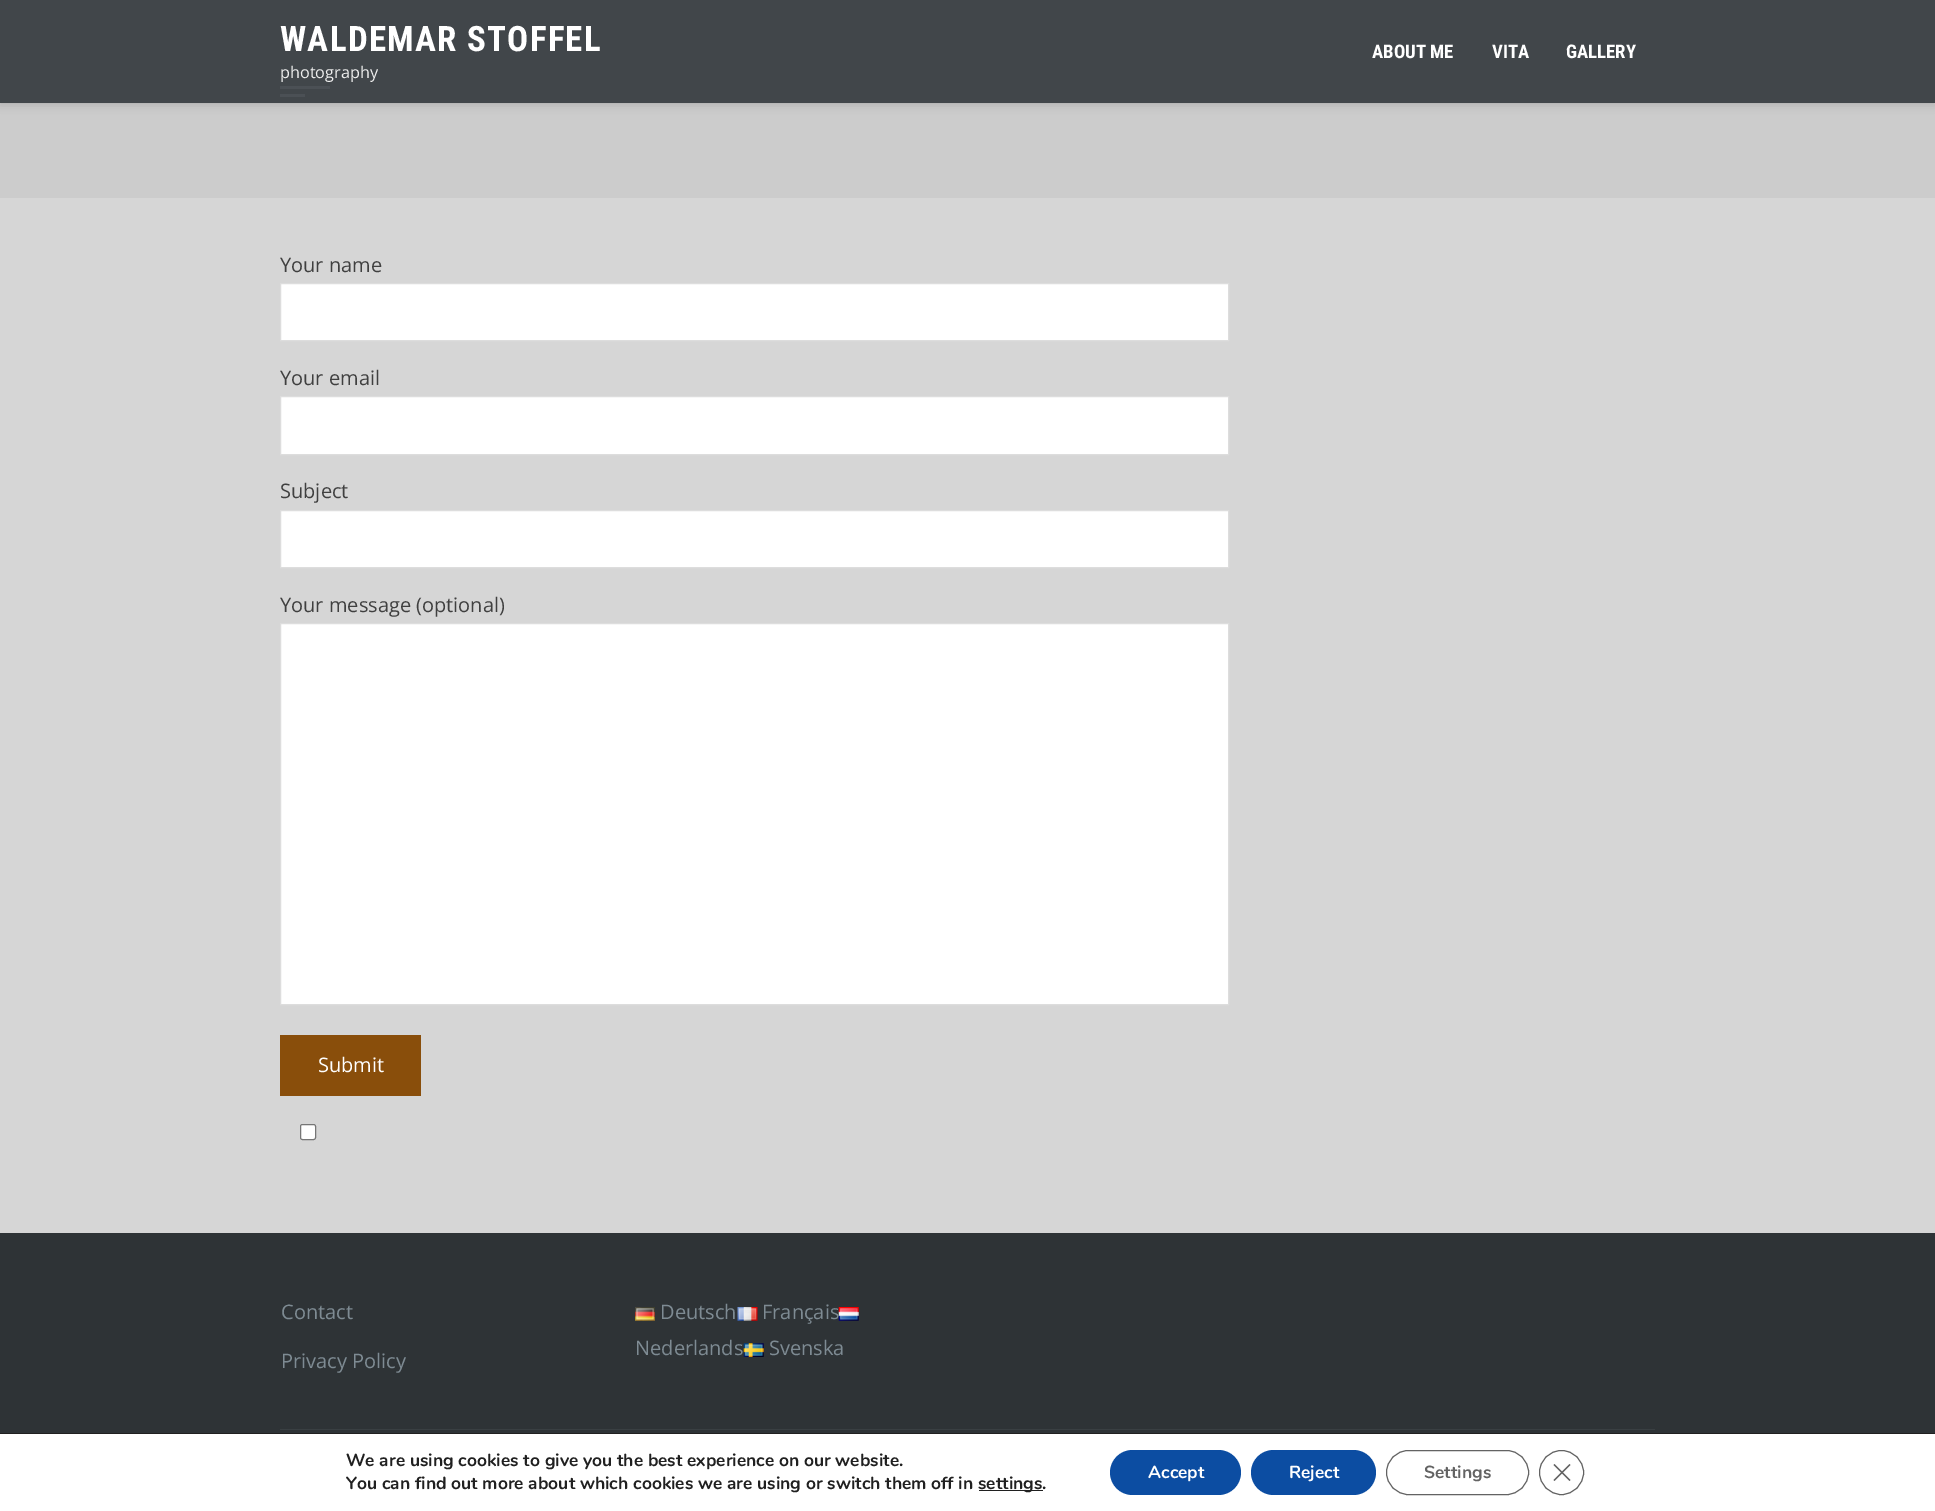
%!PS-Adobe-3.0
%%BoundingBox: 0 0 1935 1511
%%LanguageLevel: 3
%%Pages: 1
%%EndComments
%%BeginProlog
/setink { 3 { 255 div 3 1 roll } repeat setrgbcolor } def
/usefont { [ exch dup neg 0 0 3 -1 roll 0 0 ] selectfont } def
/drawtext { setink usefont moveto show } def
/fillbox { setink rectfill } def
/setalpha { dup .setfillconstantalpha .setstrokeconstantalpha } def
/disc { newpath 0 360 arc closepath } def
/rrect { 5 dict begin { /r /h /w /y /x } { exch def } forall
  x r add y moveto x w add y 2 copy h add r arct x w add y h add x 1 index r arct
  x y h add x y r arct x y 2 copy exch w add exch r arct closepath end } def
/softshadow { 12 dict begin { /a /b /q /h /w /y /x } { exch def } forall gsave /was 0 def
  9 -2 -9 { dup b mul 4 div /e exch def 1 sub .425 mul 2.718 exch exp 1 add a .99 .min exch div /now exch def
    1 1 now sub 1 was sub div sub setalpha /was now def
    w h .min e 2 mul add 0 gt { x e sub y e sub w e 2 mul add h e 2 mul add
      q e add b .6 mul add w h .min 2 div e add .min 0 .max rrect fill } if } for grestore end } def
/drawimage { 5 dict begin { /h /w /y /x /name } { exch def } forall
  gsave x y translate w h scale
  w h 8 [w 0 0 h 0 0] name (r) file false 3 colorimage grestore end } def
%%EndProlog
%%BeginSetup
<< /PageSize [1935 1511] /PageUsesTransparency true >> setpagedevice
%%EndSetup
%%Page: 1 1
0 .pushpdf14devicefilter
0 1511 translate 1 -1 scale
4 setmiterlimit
0 0 1935 1511 214 214 214 fillbox
0 0 1935 198 204 204 204 fillbox
280 86 50 3 255 255 255 fillbox
280 94 25 3 255 255 255 fillbox
gsave
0 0 moveto 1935 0 lineto 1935 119 lineto 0 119 lineto closepath 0 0 moveto 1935 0 lineto 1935 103 lineto 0 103 lineto closepath eoclip newpath
0 0 0 setink
0 0 1935 103 0 5 0.2 softshadow
grestore
0.8 setalpha
0 0 1935 103 30 36 42 fillbox
/RobotoCondensed-Bold 35 usefont
1 setalpha
255 255 255 setink
280 51 moveto 1.25 0 (WALDEMAR STOFFEL) ashow
(photography) 280 78 /OpenSans-Regular 16.25 238 238 238 drawtext
(ABOUT ME) 1372 58 /RobotoCondensed-Bold 18.75 255 255 255 drawtext
(VITA) 1492 58 /RobotoCondensed-Bold 18.75 255 255 255 drawtext
(GALLERY) 1566 58 /RobotoCondensed-Bold 18.75 255 255 255 drawtext
(Your name) 280 272 /OpenSans-Regular 20 64 64 64 drawtext
255 255 255 setink
280.5 283.5 moveto 1228.5 283.5 lineto 1228.5 340.5 lineto 280.5 340.5 lineto closepath gsave fill grestore
221 221 221 setink
stroke
(Your email) 280 385 /OpenSans-Regular 20 64 64 64 drawtext
255 255 255 setink
280.5 396.5 moveto 1228.5 396.5 lineto 1228.5 454.5 lineto 280.5 454.5 lineto closepath gsave fill grestore
221 221 221 setink
stroke
(Subject) 280 498 /OpenSans-Regular 20 64 64 64 drawtext
255 255 255 setink
280.5 510.5 moveto 1228.5 510.5 lineto 1228.5 567.5 lineto 280.5 567.5 lineto closepath gsave fill grestore
221 221 221 setink
stroke
(Your message \(optional\)) 280 612 /OpenSans-Regular 20 64 64 64 drawtext
255 255 255 setink
280.5 623.5 moveto 1228.5 623.5 lineto 1228.5 1004.5 lineto 280.5 1004.5 lineto closepath gsave fill grestore
221 221 221 setink
stroke
280 1035 141 61 137 78 11 fillbox
(Submit) 318 1072 /OpenSans-Regular 20 255 255 255 drawtext
300.5 1124.5 15 15 2 rrect gsave fill grestore
118 118 118 setink
stroke
0 1233 1935 200 46 51 54 fillbox
280 1429 1375 1 57 63 66 fillbox
(Contact) 281 1319 /OpenSans-Regular 20 126 139 147 drawtext
(Privacy Policy) 281 1368 /OpenSans-Regular 20 126 139 147 drawtext
(assets/img1.rgb) 635 1307 20 14 drawimage
(Deutsch) 660 1319 /OpenSans-Regular 20 126 139 147 drawtext
(assets/img2.rgb) 737 1307 21 14 drawimage
(Français) 762 1319 /OpenSans-Regular 20 126 139 147 drawtext
(assets/img3.rgb) 838 1307 21 14 drawimage
(Nederlands) 635 1355 /OpenSans-Regular 20 126 139 147 drawtext
(assets/img4.rgb) 743 1343 21 14 drawimage
(Svenska) 769 1355 /OpenSans-Regular 20 126 139 147 drawtext
0 1434 1935 77 255 255 255 fillbox
0 1433 1935 1 32 32 32 fillbox
(We are using cookies to give you the best experience on our website.) 346 1466 /Nunito-Bold 17.5 32 32 32 drawtext
(You can find out more about which cookies we are using or switch them off in) 346 1489 /Nunito-Bold 17.5 32 32 32 drawtext
979 1490 64 1 32 32 32 fillbox
(settings.) 978 1489 /Nunito-Bold 17.5 32 32 32 drawtext
12 77 162 setink
1110 1450 131 45 22.5 rrect fill
(Accept) 1148 1478 /Nunito-Bold 17.5 255 255 255 drawtext
12 77 162 setink
1251 1450 125 45 22.5 rrect fill
(Reject) 1289 1478 /Nunito-Bold 17.5 255 255 255 drawtext
99 99 99 setink
1386.5 1450.5 142 44 22 rrect stroke
(Settings) 1424 1478 /Nunito-Bold 17.5 99 99 99 drawtext
98 98 98 setink
1561.5 1472.5 22 disc stroke
1569.5 1464 moveto 1570.5 1465 lineto 1554.5 1481 lineto 1553.5 1480 lineto closepath fill
1553.5 1465 moveto 1554.5 1464 lineto 1570.5 1480 lineto 1569.5 1481 lineto closepath fill
.poppdf14devicefilter showpage
%%EOF
